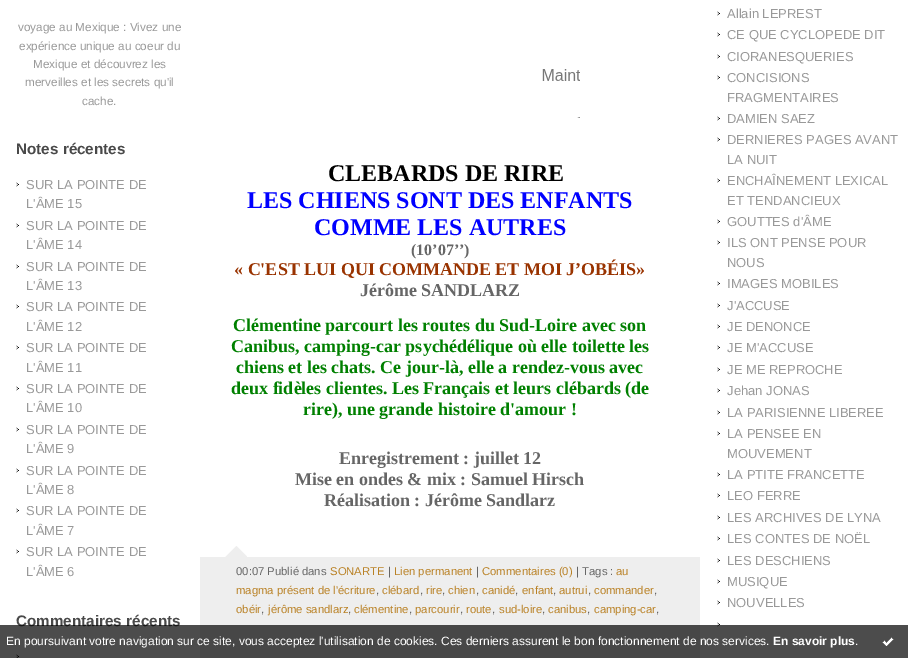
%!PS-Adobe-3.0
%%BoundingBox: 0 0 908 658
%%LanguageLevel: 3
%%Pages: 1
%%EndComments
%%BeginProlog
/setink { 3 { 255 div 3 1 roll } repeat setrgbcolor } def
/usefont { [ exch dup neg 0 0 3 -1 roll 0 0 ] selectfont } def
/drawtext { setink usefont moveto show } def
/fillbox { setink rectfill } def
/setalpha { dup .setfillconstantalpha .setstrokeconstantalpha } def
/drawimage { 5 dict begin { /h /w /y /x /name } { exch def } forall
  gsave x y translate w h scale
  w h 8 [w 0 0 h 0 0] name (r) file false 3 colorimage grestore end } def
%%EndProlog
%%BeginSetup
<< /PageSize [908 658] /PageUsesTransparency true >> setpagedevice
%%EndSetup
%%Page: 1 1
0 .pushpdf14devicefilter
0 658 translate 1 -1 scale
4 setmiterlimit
0 0 908 658 255 255 255 fillbox
(voyage au Mexique : Vivez une) 18 31 /LiberationSans-Regular 11.75 153 153 153 drawtext
(expérience unique au coeur du) 19 50 /LiberationSans-Regular 11.75 153 153 153 drawtext
(Mexique et découvrez les) 33 68 /LiberationSans-Regular 11.75 153 153 153 drawtext
(merveilles et les secrets qu'il) 25 86 /LiberationSans-Regular 11.75 153 153 153 drawtext
(cache.) 82 105 /LiberationSans-Regular 11.75 153 153 153 drawtext
(Notes récentes) 16 154 /LiberationSans-Bold 15.25 73 73 73 drawtext
(assets/img1.rgb) 16 182 3 5 drawimage
(SUR LA POINTE DE) 26 189 /LiberationSans-Regular 13 153 153 153 drawtext
(L'ÂME 15) 26 208 /LiberationSans-Regular 13 153 153 153 drawtext
(assets/img1.rgb) 16 223 3 5 drawimage
(SUR LA POINTE DE) 26 230 /LiberationSans-Regular 13 153 153 153 drawtext
(L'ÂME 14) 26 249 /LiberationSans-Regular 13 153 153 153 drawtext
(assets/img1.rgb) 16 264 3 5 drawimage
(SUR LA POINTE DE) 26 271 /LiberationSans-Regular 13 153 153 153 drawtext
(L'ÂME 13) 26 290 /LiberationSans-Regular 13 153 153 153 drawtext
(assets/img1.rgb) 16 304 3 5 drawimage
(SUR LA POINTE DE) 26 311 /LiberationSans-Regular 13 153 153 153 drawtext
(L'ÂME 12) 26 331 /LiberationSans-Regular 13 153 153 153 drawtext
(assets/img1.rgb) 16 345 3 5 drawimage
(SUR LA POINTE DE) 26 352 /LiberationSans-Regular 13 153 153 153 drawtext
(L'ÂME 11) 26 372 /LiberationSans-Regular 13 153 153 153 drawtext
(assets/img1.rgb) 16 386 3 5 drawimage
(SUR LA POINTE DE) 26 393 /LiberationSans-Regular 13 153 153 153 drawtext
(L'ÂME 10) 26 412 /LiberationSans-Regular 13 153 153 153 drawtext
(assets/img1.rgb) 16 427 3 5 drawimage
(SUR LA POINTE DE) 26 434 /LiberationSans-Regular 13 153 153 153 drawtext
(L'ÂME 9) 26 453 /LiberationSans-Regular 13 153 153 153 drawtext
(assets/img1.rgb) 16 468 3 5 drawimage
(SUR LA POINTE DE) 26 475 /LiberationSans-Regular 13 153 153 153 drawtext
(L'ÂME 8) 26 494 /LiberationSans-Regular 13 153 153 153 drawtext
(assets/img1.rgb) 16 508 3 5 drawimage
(SUR LA POINTE DE) 26 515 /LiberationSans-Regular 13 153 153 153 drawtext
(L'ÂME 7) 26 535 /LiberationSans-Regular 13 153 153 153 drawtext
(assets/img1.rgb) 16 549 3 5 drawimage
(SUR LA POINTE DE) 26 556 /LiberationSans-Regular 13 153 153 153 drawtext
(L'ÂME 6) 26 576 /LiberationSans-Regular 13 153 153 153 drawtext
(Commentaires récents) 16 626 /LiberationSans-Bold 15.25 73 73 73 drawtext
(assets/img2.rgb) 16 654 3 4 drawimage
(assets/img3.rgb) 542 69 38 49 drawimage
(CLEBARDS DE RIRE) 328 181 /LiberationSerif-Bold 24 0 0 0 drawtext
(LES CHIENS SONT DES ENFANTS) 247 208 /LiberationSerif-Bold 24 0 0 255 drawtext
(COMME LES AUTRES) 314 235 /LiberationSerif-Bold 24 0 0 255 drawtext
(\(10’07’’\)) 411 255 /LiberationSerif-Bold 16 102 102 102 drawtext
(« C'EST LUI QUI COMMANDE ET MOI J’OBÉIS») 234 275 /LiberationSerif-Bold 18 153 51 0 drawtext
(Jérôme SANDLARZ) 360 296 /LiberationSerif-Bold 18 102 102 102 drawtext
(Clémentine parcourt les routes du Sud-Loire avec son) 233 331 /LiberationSerif-Bold 18 0 128 0 drawtext
(Canibus, camping-car psychédélique où elle toilette les) 231 352 /LiberationSerif-Bold 18 0 128 0 drawtext
(chiens et les chats. Ce jour-là, elle a rendez-vous avec) 236 373 /LiberationSerif-Bold 18 0 128 0 drawtext
(deux fidèles clientes. Les Français et leurs clébards \(de) 231 394 /LiberationSerif-Bold 18 0 128 0 drawtext
(rire\), une grande histoire d'amour !) 303 415 /LiberationSerif-Bold 18 0 128 0 drawtext
(Enregistrement : juillet 12) 339 464 /LiberationSerif-Bold 18 102 102 102 drawtext
(Mise en ondes & mix : Samuel Hirsch) 295 485 /LiberationSerif-Bold 18 102 102 102 drawtext
(Réalisation : Jérôme Sandlarz) 324 506 /LiberationSerif-Bold 18 102 102 102 drawtext
(assets/img4.rgb) 225 546 22 11 drawimage
200 557 500 101 238 238 238 fillbox
(00:07 Publié dans) 236 575 /LiberationSans-Regular 11.3 102 102 102 drawtext
(SONARTE) 330 575 /LiberationSans-Regular 11.3 185 129 37 drawtext
(|) 388 575 /LiberationSans-Regular 11.3 102 102 102 drawtext
(Lien permanent) 394 575 /LiberationSans-Regular 11.3 185 129 37 drawtext
(|) 476 575 /LiberationSans-Regular 11.3 102 102 102 drawtext
(Commentaires \(0\)) 482 575 /LiberationSans-Regular 11.3 185 129 37 drawtext
(| Tags :) 576 575 /LiberationSans-Regular 11.3 102 102 102 drawtext
(au) 616 575 /LiberationSans-Regular 11.3 185 129 37 drawtext
(magma présent de l'écriture) 236 594 /LiberationSans-Regular 11.3 185 129 37 drawtext
(,) 376 594 /LiberationSans-Regular 11.3 102 102 102 drawtext
(clébard) 382 594 /LiberationSans-Regular 11.3 185 129 37 drawtext
(,) 420 594 /LiberationSans-Regular 11.3 102 102 102 drawtext
(rire) 426 594 /LiberationSans-Regular 11.3 185 129 37 drawtext
(,) 442 594 /LiberationSans-Regular 11.3 102 102 102 drawtext
(chien) 448 594 /LiberationSans-Regular 11.3 185 129 37 drawtext
(,) 476 594 /LiberationSans-Regular 11.3 102 102 102 drawtext
(canidé) 482 594 /LiberationSans-Regular 11.3 185 129 37 drawtext
(,) 515 594 /LiberationSans-Regular 11.3 102 102 102 drawtext
(enfant) 522 594 /LiberationSans-Regular 11.3 185 129 37 drawtext
(,) 553 594 /LiberationSans-Regular 11.3 102 102 102 drawtext
(autrui) 559 594 /LiberationSans-Regular 11.3 185 129 37 drawtext
(,) 588 594 /LiberationSans-Regular 11.3 102 102 102 drawtext
(commander) 594 594 /LiberationSans-Regular 11.3 185 129 37 drawtext
(,) 654 594 /LiberationSans-Regular 11.3 102 102 102 drawtext
(obéir) 236 613 /LiberationSans-Regular 11.3 185 129 37 drawtext
(,) 261 613 /LiberationSans-Regular 11.3 102 102 102 drawtext
(jérôme sandlarz) 268 613 /LiberationSans-Regular 11.3 185 129 37 drawtext
(,) 348 613 /LiberationSans-Regular 11.3 102 102 102 drawtext
(clémentine) 354 613 /LiberationSans-Regular 11.3 185 129 37 drawtext
(,) 409 613 /LiberationSans-Regular 11.3 102 102 102 drawtext
(parcourir) 415 613 /LiberationSans-Regular 11.3 185 129 37 drawtext
(,) 460 613 /LiberationSans-Regular 11.3 102 102 102 drawtext
(route) 466 613 /LiberationSans-Regular 11.3 185 129 37 drawtext
(,) 492 613 /LiberationSans-Regular 11.3 102 102 102 drawtext
(sud-loire) 499 613 /LiberationSans-Regular 11.3 185 129 37 drawtext
(,) 542 613 /LiberationSans-Regular 11.3 102 102 102 drawtext
(canibus) 548 613 /LiberationSans-Regular 11.3 185 129 37 drawtext
(,) 587 613 /LiberationSans-Regular 11.3 102 102 102 drawtext
(camping-car) 594 613 /LiberationSans-Regular 11.3 185 129 37 drawtext
(,) 656 613 /LiberationSans-Regular 11.3 102 102 102 drawtext
(assets/img1.rgb) 717 11 3 5 drawimage
(Allain LEPREST) 727 18 /LiberationSans-Regular 13 153 153 153 drawtext
(assets/img1.rgb) 717 32 3 5 drawimage
(CE QUE CYCLOPEDE DIT) 727 39 /LiberationSans-Regular 13 153 153 153 drawtext
(assets/img1.rgb) 717 54 3 5 drawimage
(CIORANESQUERIES) 727 61 /LiberationSans-Regular 13 153 153 153 drawtext
(assets/img1.rgb) 717 75 3 5 drawimage
(CONCISIONS) 727 82 /LiberationSans-Regular 13 153 153 153 drawtext
(FRAGMENTAIRES) 727 102 /LiberationSans-Regular 13 153 153 153 drawtext
(assets/img1.rgb) 717 116 3 5 drawimage
(DAMIEN SAEZ) 727 123 /LiberationSans-Regular 13 153 153 153 drawtext
(assets/img1.rgb) 717 137 3 5 drawimage
(DERNIERES PAGES AVANT) 727 144 /LiberationSans-Regular 13 153 153 153 drawtext
(LA NUIT) 727 164 /LiberationSans-Regular 13 153 153 153 drawtext
(assets/img1.rgb) 717 178 3 5 drawimage
(ENCHAÎNEMENT LEXICAL) 727 185 /LiberationSans-Regular 13 153 153 153 drawtext
(ET TENDANCIEUX) 727 205 /LiberationSans-Regular 13 153 153 153 drawtext
(assets/img1.rgb) 717 219 3 5 drawimage
(GOUTTES d'ÂME) 727 226 /LiberationSans-Regular 13 153 153 153 drawtext
(assets/img1.rgb) 717 240 3 5 drawimage
(ILS ONT PENSE POUR) 727 247 /LiberationSans-Regular 13 153 153 153 drawtext
(NOUS) 727 267 /LiberationSans-Regular 13 153 153 153 drawtext
(assets/img1.rgb) 717 281 3 5 drawimage
(IMAGES MOBILES) 727 288 /LiberationSans-Regular 13 153 153 153 drawtext
(assets/img1.rgb) 717 303 3 5 drawimage
(J'ACCUSE) 727 310 /LiberationSans-Regular 13 153 153 153 drawtext
(assets/img1.rgb) 717 324 3 5 drawimage
(JE DENONCE) 727 331 /LiberationSans-Regular 13 153 153 153 drawtext
(assets/img1.rgb) 717 345 3 5 drawimage
(JE M'ACCUSE) 727 352 /LiberationSans-Regular 13 153 153 153 drawtext
(assets/img1.rgb) 717 367 3 5 drawimage
(JE ME REPROCHE) 727 374 /LiberationSans-Regular 13 153 153 153 drawtext
(assets/img1.rgb) 717 388 3 5 drawimage
(Jehan JONAS) 727 395 /LiberationSans-Regular 13 153 153 153 drawtext
(assets/img1.rgb) 717 410 3 5 drawimage
(LA PARISIENNE LIBEREE) 727 417 /LiberationSans-Regular 13 153 153 153 drawtext
(assets/img1.rgb) 717 431 3 5 drawimage
(LA PENSEE EN) 727 438 /LiberationSans-Regular 13 153 153 153 drawtext
(MOUVEMENT) 727 458 /LiberationSans-Regular 13 153 153 153 drawtext
(assets/img1.rgb) 717 472 3 5 drawimage
(LA PTITE FRANCETTE) 727 479 /LiberationSans-Regular 13 153 153 153 drawtext
(assets/img1.rgb) 717 493 3 5 drawimage
(LEO FERRE) 727 500 /LiberationSans-Regular 13 153 153 153 drawtext
(assets/img1.rgb) 717 515 3 5 drawimage
(LES ARCHIVES DE LYNA) 727 522 /LiberationSans-Regular 13 153 153 153 drawtext
(assets/img1.rgb) 717 536 3 5 drawimage
(LES CONTES DE NOËL) 727 543 /LiberationSans-Regular 13 153 153 153 drawtext
(assets/img1.rgb) 717 558 3 5 drawimage
(LES DESCHIENS) 727 565 /LiberationSans-Regular 13 153 153 153 drawtext
(assets/img1.rgb) 717 579 3 5 drawimage
(MUSIQUE) 727 586 /LiberationSans-Regular 13 153 153 153 drawtext
(assets/img1.rgb) 717 600 3 5 drawimage
(NOUVELLES) 727 607 /LiberationSans-Regular 13 153 153 153 drawtext
(assets/img1.rgb) 717 622 3 5 drawimage
0.7 setalpha
0 625 908 33 0 0 0 fillbox
1 setalpha
(En poursuivant votre navigation sur ce site, vous acceptez l'utilisation de cookies. Ces derniers assurent le bon fonctionnement de nos services.) 6 645 /LiberationSans-Regular 12 255 255 255 drawtext
(En savoir plus) 773 645 /LiberationSans-Bold 12 255 255 255 drawtext
(.) 855 645 /LiberationSans-Regular 12 255 255 255 drawtext
(assets/img5.rgb) 882 637 12 9 drawimage
.poppdf14devicefilter showpage
%%EOF
